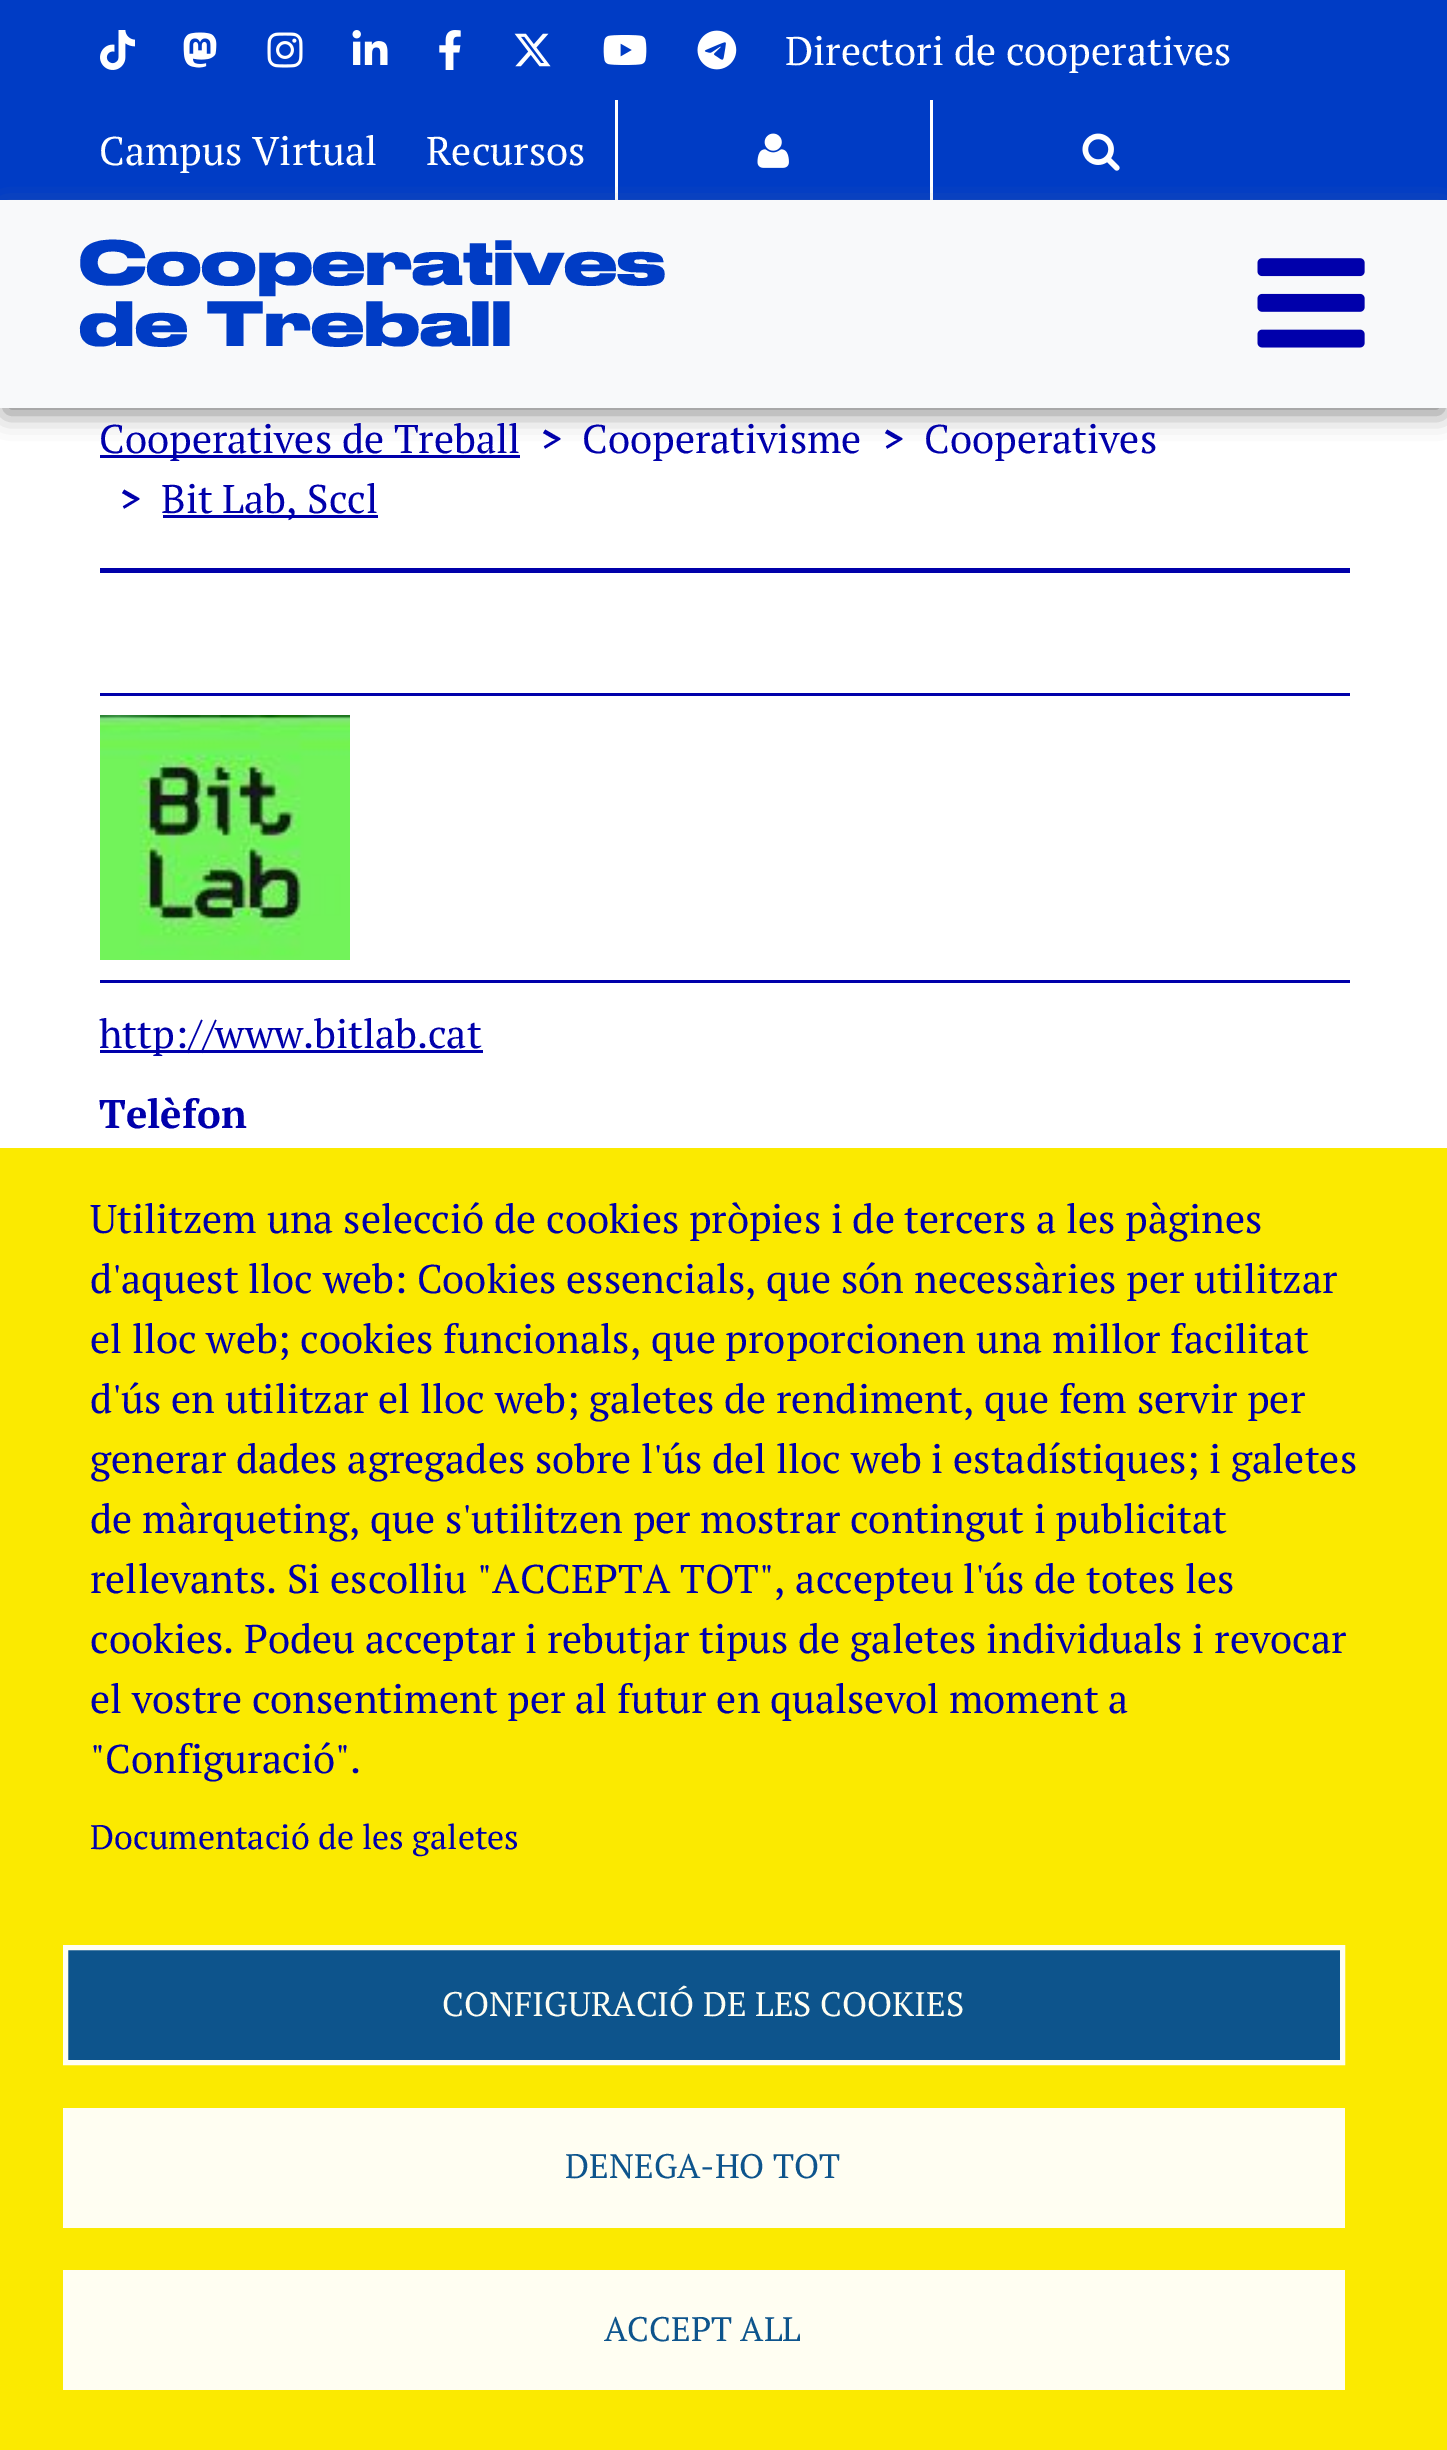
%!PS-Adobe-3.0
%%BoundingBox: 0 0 1447 2450
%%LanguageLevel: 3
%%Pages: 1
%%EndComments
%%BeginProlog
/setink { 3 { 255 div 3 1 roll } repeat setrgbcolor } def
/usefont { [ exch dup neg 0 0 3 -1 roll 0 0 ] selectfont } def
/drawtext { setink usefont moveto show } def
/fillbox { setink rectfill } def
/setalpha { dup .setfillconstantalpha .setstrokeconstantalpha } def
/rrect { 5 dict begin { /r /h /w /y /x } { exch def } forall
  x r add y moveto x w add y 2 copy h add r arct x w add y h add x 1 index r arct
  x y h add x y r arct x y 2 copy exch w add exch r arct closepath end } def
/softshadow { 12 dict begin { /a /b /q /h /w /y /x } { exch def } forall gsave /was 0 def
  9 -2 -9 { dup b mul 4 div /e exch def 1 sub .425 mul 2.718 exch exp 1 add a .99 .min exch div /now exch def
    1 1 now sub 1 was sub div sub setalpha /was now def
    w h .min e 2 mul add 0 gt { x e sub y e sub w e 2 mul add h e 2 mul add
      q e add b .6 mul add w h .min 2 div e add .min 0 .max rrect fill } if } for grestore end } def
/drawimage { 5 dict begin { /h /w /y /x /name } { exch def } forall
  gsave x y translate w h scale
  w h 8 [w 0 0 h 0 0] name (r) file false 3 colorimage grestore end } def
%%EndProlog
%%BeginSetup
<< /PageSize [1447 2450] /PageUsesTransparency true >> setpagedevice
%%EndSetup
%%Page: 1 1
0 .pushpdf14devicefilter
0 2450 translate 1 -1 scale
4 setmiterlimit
0 0 1447 2450 255 255 255 fillbox
0 0 1447 200 0 60 197 fillbox
(assets/img1.rgb) 100 30 35 40 drawimage
(assets/img2.rgb) 183 32 34 36 drawimage
(assets/img3.rgb) 267 32 36 36 drawimage
(assets/img4.rgb) 352 30 36 35 drawimage
(assets/img5.rgb) 439 30 22 40 drawimage
(assets/img6.rgb) 514 33 37 34 drawimage
(assets/img7.rgb) 603 35 44 30 drawimage
(assets/img8.rgb) 697 30 40 40 drawimage
(Directori de cooperatives) 785 65 /PTSerif-Regular 40 255 255 255 drawtext
(Campus Virtual) 99 165 /PTSerif-Regular 40 255 255 255 drawtext
(Recursos) 426 165 /PTSerif-Regular 40 255 255 255 drawtext
930 100 3 100 255 255 255 fillbox
615 100 3 100 255 255 255 fillbox
(assets/img9.rgb) 757 133 32 35 drawimage
(assets/img10.rgb) 1082 133 38 38 drawimage
128 128 128 setink
5 215 1438 198 0 12.5 1 softshadow
0 200 1447 208 248 249 250 fillbox
(Cooperatives) 79 285 /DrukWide-Bold 60 0 60 197 drawtext
(de Treball) 79 346 /DrukWide-Bold 60 0 60 197 drawtext
(assets/img11.rgb) 1257 258 108 90 drawimage
100 455 420 3 0 0 171 fillbox
(Cooperatives de Treball) 99 453 /PTSerif-Regular 40 0 0 171 drawtext
(>) 540 453 /PTSerif-Bold 40 0 0 171 drawtext
(Cooperativisme) 582 453 /PTSerif-Regular 40 0 0 171 drawtext
(>) 882 453 /PTSerif-Bold 40 0 0 171 drawtext
(Cooperatives) 924 453 /PTSerif-Regular 40 0 0 171 drawtext
(>) 119 513 /PTSerif-Bold 40 0 0 171 drawtext
163 515 215 3 0 0 171 fillbox
(Bit Lab, Sccl) 161 513 /PTSerif-Regular 40 0 0 171 drawtext
100 568 1250 5 0 0 170 fillbox
100 693 1250 3 0 0 170 fillbox
(assets/img12.rgb) 100 715 250 245 drawimage
100 980 1250 3 0 0 170 fillbox
100 1050 383 3 0 0 171 fillbox
(http://www.bitlab.cat) 99 1048 /PTSerif-Regular 40 0 0 171 drawtext
(Telèfon) 99 1128 /PTSerif-Bold 40 0 0 171 drawtext
0 1148 1447 1302 251 234 0 fillbox
(Utilitzem una selecció de cookies pròpies i de tercers a les pàgines) 90 1233 /PTSerif-Regular 40 0 0 171 drawtext
(d'aquest lloc web: Cookies essencials, que són necessàries per utilitzar) 90 1293 /PTSerif-Regular 40 0 0 171 drawtext
(el lloc web; cookies funcionals, que proporcionen una millor facilitat) 90 1353 /PTSerif-Regular 40 0 0 171 drawtext
(d'ús en utilitzar el lloc web; galetes de rendiment, que fem servir per) 90 1413 /PTSerif-Regular 40 0 0 171 drawtext
(generar dades agregades sobre l'ús del lloc web i estadístiques; i galetes) 90 1473 /PTSerif-Regular 40 0 0 171 drawtext
(de màrqueting, que s'utilitzen per mostrar contingut i publicitat) 90 1533 /PTSerif-Regular 40 0 0 171 drawtext
(rellevants. Si escolliu "ACCEPTA TOT", accepteu l'ús de totes les) 90 1593 /PTSerif-Regular 40 0 0 171 drawtext
(cookies. Podeu acceptar i rebutjar tipus de galetes individuals i revocar) 90 1653 /PTSerif-Regular 40 0 0 171 drawtext
(el vostre consentiment per al futur en qualsevol moment a) 90 1713 /PTSerif-Regular 40 0 0 171 drawtext
("Configuració".) 90 1773 /PTSerif-Regular 40 0 0 171 drawtext
(Documentació de les galetes) 90 1849 /PTSerif-Regular 34 0 0 171 drawtext
13 84 140 setink
65.5 1947.5 moveto 1342.5 1947.5 lineto 1342.5 2062.5 lineto 65.5 2062.5 lineto closepath gsave fill grestore
255 254 242 setink
5 setlinewidth
stroke
(CONFIGURACIÓ DE LES COOKIES) 442 2016 /PTSerif-Regular 34 255 254 242 drawtext
63 2108 1282 120 255 254 242 fillbox
(DENEGA-HO TOT) 565 2178 /PTSerif-Regular 34 13 84 140 drawtext
63 2270 1282 120 255 254 242 fillbox
(ACCEPT ALL) 604 2341 /PTSerif-Regular 34 13 84 140 drawtext
.poppdf14devicefilter showpage
%%EOF
